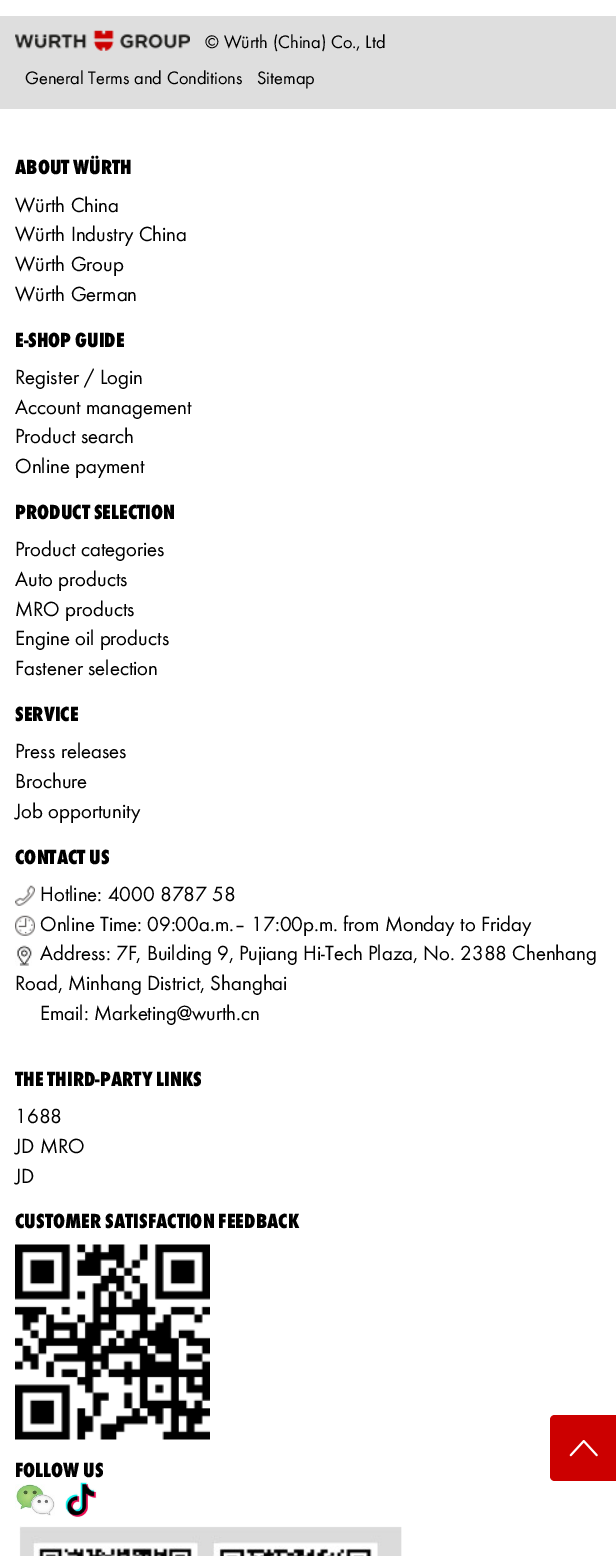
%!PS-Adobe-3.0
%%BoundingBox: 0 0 616 1556
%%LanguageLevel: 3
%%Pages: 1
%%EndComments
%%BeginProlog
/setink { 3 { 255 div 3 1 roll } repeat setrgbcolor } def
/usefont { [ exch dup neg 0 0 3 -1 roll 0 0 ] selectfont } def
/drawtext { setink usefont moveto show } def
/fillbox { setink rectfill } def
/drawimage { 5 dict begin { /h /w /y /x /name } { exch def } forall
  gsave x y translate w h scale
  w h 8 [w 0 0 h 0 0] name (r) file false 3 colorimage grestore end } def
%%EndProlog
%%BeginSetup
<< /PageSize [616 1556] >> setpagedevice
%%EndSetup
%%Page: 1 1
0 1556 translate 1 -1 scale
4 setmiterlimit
0 0 616 1556 255 255 255 fillbox
0 16 616 93 222 222 222 fillbox
(assets/img1.rgb) 15 30 175 21 drawimage
(© Würth \(China\) Co., Ltd) 205 48 /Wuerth-Regular 18.75 0 0 0 drawtext
(General Terms and Conditions) 25 84 /Wuerth-Regular 18.75 0 0 0 drawtext
(Sitemap) 257 84 /Wuerth-Regular 18.75 0 0 0 drawtext
(ABOUT WÜRTH) 15 174 /Wuerth-ExtraBold 21.25 0 0 0 drawtext
(Würth China) 15 212 /Wuerth-Regular 21.25 0 0 0 drawtext
(Würth Industry China) 15 241 /Wuerth-Regular 21.25 0 0 0 drawtext
(Würth Group) 15 271 /Wuerth-Regular 21.25 0 0 0 drawtext
(Würth German) 15 301 /Wuerth-Regular 21.25 0 0 0 drawtext
(E-SHOP GUIDE) 15 347 /Wuerth-ExtraBold 21.25 0 0 0 drawtext
(Register / Login) 15 384 /Wuerth-Regular 21.25 0 0 0 drawtext
(Account management) 15 414 /Wuerth-Regular 21.25 0 0 0 drawtext
(Product search) 15 443 /Wuerth-Regular 21.25 0 0 0 drawtext
(Online payment) 15 473 /Wuerth-Regular 21.25 0 0 0 drawtext
(PRODUCT SELECTION) 15 519 /Wuerth-ExtraBold 21.25 0 0 0 drawtext
(Product categories) 15 556 /Wuerth-Regular 21.25 0 0 0 drawtext
(Auto products) 15 586 /Wuerth-Regular 21.25 0 0 0 drawtext
(MRO products) 15 616 /Wuerth-Regular 21.25 0 0 0 drawtext
(Engine oil products) 15 645 /Wuerth-Regular 21.25 0 0 0 drawtext
(Fastener selection) 15 675 /Wuerth-Regular 21.25 0 0 0 drawtext
(SERVICE) 15 721 /Wuerth-ExtraBold 21.25 0 0 0 drawtext
(Press releases) 15 758 /Wuerth-Regular 21.25 0 0 0 drawtext
(Brochure) 15 788 /Wuerth-Regular 21.25 0 0 0 drawtext
(Job opportunity) 15 818 /Wuerth-Regular 21.25 0 0 0 drawtext
(CONTACT US) 15 864 /Wuerth-ExtraBold 21.25 0 0 0 drawtext
(assets/img2.rgb) 15 885 20 21 drawimage
(Hotline: 4000 8787 58) 40 901 /Wuerth-Regular 21.25 0 0 0 drawtext
(assets/img3.rgb) 15 915 20 21 drawimage
(Online Time: 09:00a.m.– 17:00p.m. from Monday to Friday) 40 931 /Wuerth-Regular 21.25 0 0 0 drawtext
(assets/img4.rgb) 15 945 17 21 drawimage
(Address: 7F, Building 9, Pujiang Hi-Tech Plaza, No. 2388 Chenhang) 40 960 /Wuerth-Regular 21.25 0 0 0 drawtext
(Road, Minhang District, Shanghai) 15 990 /Wuerth-Regular 21.25 0 0 0 drawtext
(Email: Marketing@wurth.cn) 40 1020 /Wuerth-Regular 21.25 0 0 0 drawtext
(THE THIRD-PARTY LINKS) 15 1086 /Wuerth-ExtraBold 21.25 0 0 0 drawtext
(1688) 15 1123 /Wuerth-Regular 21.25 0 0 0 drawtext
(JD MRO) 15 1153 /Wuerth-Regular 21.25 0 0 0 drawtext
(JD) 15 1183 /Wuerth-Regular 21.25 0 0 0 drawtext
(CUSTOMER SATISFACTION FEEDBACK) 15 1228 /Wuerth-ExtraBold 21.25 0 0 0 drawtext
(assets/img5.rgb) 15 1244 195 196 drawimage
(FOLLOW US) 15 1477 /Wuerth-ExtraBold 21.25 0 0 0 drawtext
(assets/img6.rgb) 15 1484 40 32 drawimage
(assets/img7.rgb) 65 1482 32 37 drawimage
(assets/img8.rgb) 19 1526 383 30 drawimage
204 0 0 setink
555 1415 moveto 616 1415 lineto 616 1481 lineto 555 1481 lineto 552 1481 550 1479 550 1476 curveto 550 1420 lineto 550 1417 552 1415 555 1415 curveto closepath fill
(assets/img9.rgb) 569 1440 29 17 drawimage
showpage
%%EOF
